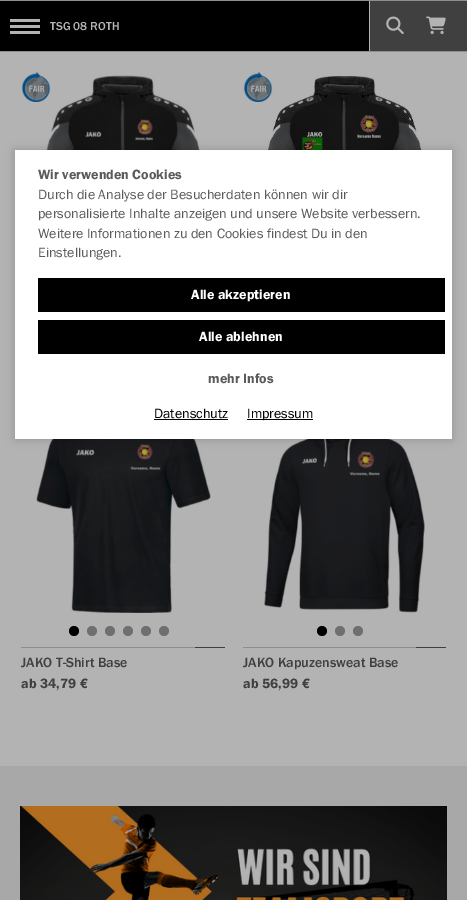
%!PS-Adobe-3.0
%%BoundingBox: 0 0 467 900
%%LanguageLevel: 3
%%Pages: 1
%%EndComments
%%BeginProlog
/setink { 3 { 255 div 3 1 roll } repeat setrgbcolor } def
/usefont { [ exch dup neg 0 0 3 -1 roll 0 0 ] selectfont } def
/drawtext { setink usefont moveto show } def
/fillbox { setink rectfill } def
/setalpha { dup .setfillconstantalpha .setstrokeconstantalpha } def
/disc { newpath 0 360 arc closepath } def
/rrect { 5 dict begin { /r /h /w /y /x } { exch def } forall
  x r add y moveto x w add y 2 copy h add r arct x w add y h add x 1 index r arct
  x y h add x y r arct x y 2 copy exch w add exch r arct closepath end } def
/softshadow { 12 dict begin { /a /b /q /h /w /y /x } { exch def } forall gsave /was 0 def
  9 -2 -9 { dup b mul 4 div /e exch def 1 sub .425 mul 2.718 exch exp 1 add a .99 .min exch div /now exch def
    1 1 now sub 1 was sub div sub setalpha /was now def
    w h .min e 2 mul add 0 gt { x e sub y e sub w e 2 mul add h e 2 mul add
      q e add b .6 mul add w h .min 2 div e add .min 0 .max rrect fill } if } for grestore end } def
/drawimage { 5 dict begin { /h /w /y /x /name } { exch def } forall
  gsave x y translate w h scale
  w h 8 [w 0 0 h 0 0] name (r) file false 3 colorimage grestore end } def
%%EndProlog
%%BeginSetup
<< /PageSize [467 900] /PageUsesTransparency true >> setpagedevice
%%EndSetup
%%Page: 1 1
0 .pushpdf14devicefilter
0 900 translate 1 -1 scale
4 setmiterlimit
0 0 467 900 179 179 179 fillbox
0 1 369 50 0 0 0 fillbox
0 0 467 1 142 142 142 fillbox
0 51 467 1 142 142 142 fillbox
10 19 30 3 179 179 179 fillbox
10 25 30 3 179 179 179 fillbox
10 31 30 3 179 179 179 fillbox
(TSG 08 ROTH) 50 30 /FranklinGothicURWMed-Regular 12 179 179 179 drawtext
370 1 97 50 64 64 64 fillbox
(assets/img1.rgb) 386 16 18 19 drawimage
(assets/img2.rgb) 426 16 20 19 drawimage
(assets/img4.rgb) 38 75 171 75 drawimage
(assets/img3.rgb) 21 72 30 30 drawimage
(assets/img5.rgb) 259 76 172 74 drawimage
(assets/img3.rgb) 243 72 30 30 drawimage
21 647 174 1 142 142 142 fillbox
(assets/img6.rgb) 36 439 175 174 drawimage
0 0 0 setink
74 631 5 disc fill
111 111 111 setink
92 631 5 disc fill
110 631 5 disc fill
128 631 5 disc fill
146 631 5 disc fill
164 631 5 disc fill
195 647 30 1 64 64 64 fillbox
(JAKO T-Shirt Base) 21 667 /FranklinGothicURWMed-Regular 14 64 64 64 drawtext
(ab 34,79 €) 21 688 /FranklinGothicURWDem-Regular 14 64 64 64 drawtext
243 647 173 1 142 142 142 fillbox
(assets/img7.rgb) 264 439 161 174 drawimage
0 0 0 setink
322 631 5 disc fill
111 111 111 setink
340 631 5 disc fill
358 631 5 disc fill
416 647 30 1 64 64 64 fillbox
(JAKO Kapuzensweat Base) 243 667 /FranklinGothicURWMed-Regular 14 64 64 64 drawtext
(ab 56,99 €) 243 688 /FranklinGothicURWDem-Regular 14 64 64 64 drawtext
0 766 467 134 168 168 168 fillbox
(assets/img8.rgb) 20 806 427 94 drawimage
0 0 0 setink
15 150 437 289 0 5 0.2 softshadow
15 150 437 289 255 255 255 fillbox
(Wir verwenden Cookies) 38 179 /FranklinGothicURWDem-Regular 14 91 91 91 drawtext
(Durch die Analyse der Besucherdaten können wir dir) 38 199 /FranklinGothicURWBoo-Regular 14 91 91 91 drawtext
(personalisierte Inhalte anzeigen und unsere Website verbessern.) 38 218 /FranklinGothicURWBoo-Regular 14 91 91 91 drawtext
(Weitere Informationen zu den Cookies findest Du in den) 38 238 /FranklinGothicURWBoo-Regular 14 91 91 91 drawtext
(Einstellungen.) 38 257 /FranklinGothicURWBoo-Regular 14 91 91 91 drawtext
38 278 407 34 0 0 0 fillbox
(Alle akzeptieren) 191 299 /FranklinGothicURWDem-Regular 14 255 255 255 drawtext
38 320 407 34 0 0 0 fillbox
(Alle ablehnen) 199 341 /FranklinGothicURWDem-Regular 14 255 255 255 drawtext
(mehr Infos) 208 383 /FranklinGothicURWDem-Regular 14 91 91 91 drawtext
(Datenschutz) 154 418 /FranklinGothicURWBoo-Regular 14 0 0 0 drawtext
154 419 74 1 0 0 0 fillbox
247 419 66 1 0 0 0 fillbox
(Impressum) 247 418 /FranklinGothicURWBoo-Regular 14 0 0 0 drawtext
.poppdf14devicefilter showpage
%%EOF
